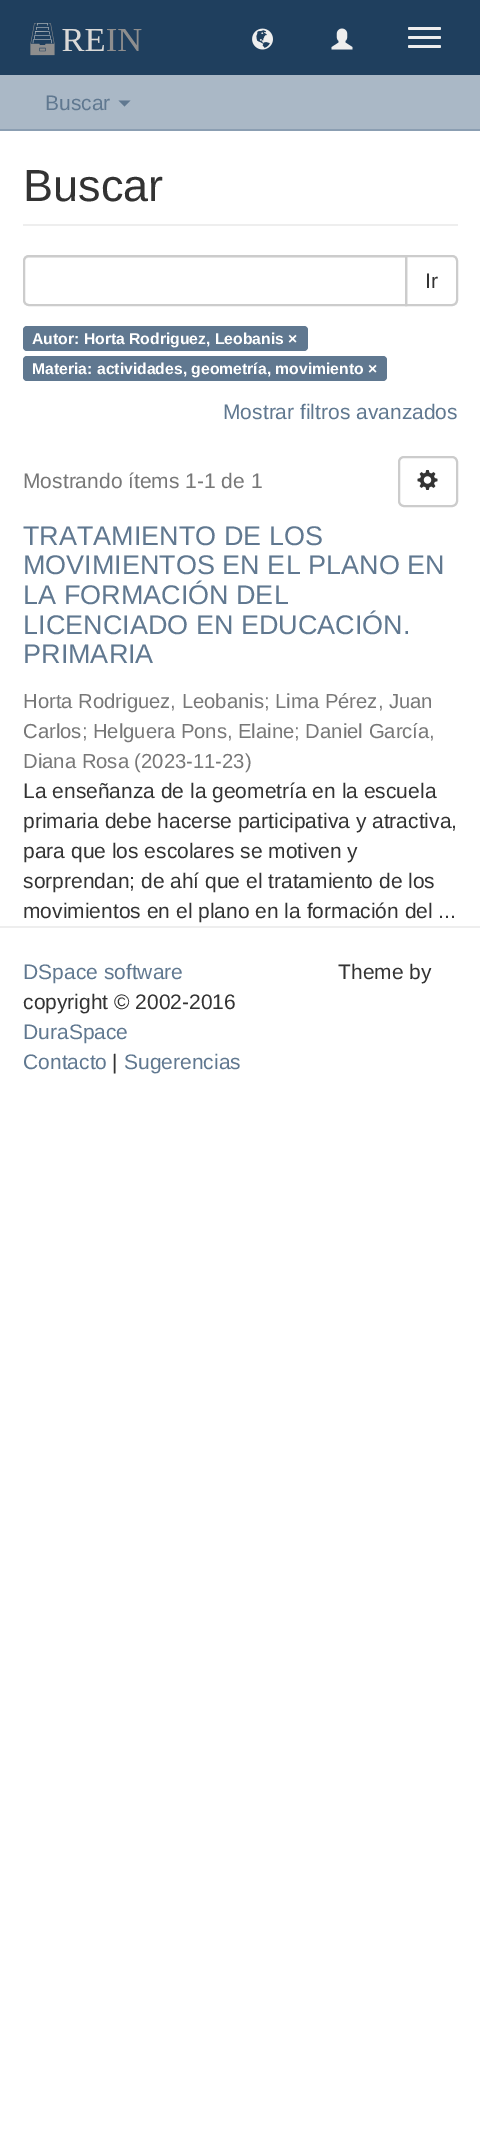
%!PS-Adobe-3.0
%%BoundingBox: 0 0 480 2135
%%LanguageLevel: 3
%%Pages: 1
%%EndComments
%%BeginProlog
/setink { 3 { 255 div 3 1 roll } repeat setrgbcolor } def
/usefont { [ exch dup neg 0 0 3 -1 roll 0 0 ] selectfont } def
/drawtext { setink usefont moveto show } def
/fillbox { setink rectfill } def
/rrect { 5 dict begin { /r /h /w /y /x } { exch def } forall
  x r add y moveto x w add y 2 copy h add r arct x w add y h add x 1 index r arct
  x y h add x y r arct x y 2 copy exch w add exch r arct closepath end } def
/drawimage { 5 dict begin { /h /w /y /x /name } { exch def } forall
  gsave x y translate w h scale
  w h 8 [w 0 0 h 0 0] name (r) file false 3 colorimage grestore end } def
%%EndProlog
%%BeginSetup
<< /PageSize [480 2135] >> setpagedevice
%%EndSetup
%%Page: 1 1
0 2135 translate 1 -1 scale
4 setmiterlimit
0 0 480 2135 255 255 255 fillbox
0 0 480 75 31 63 94 fillbox
(assets/img1.rgb) 30 23 112 33 drawimage
(assets/img2.rgb) 252 28 21 22 drawimage
(assets/img3.rgb) 331 28 22 22 drawimage
238 238 238 setink
408 27 33 3 1.5 rrect fill
408 36 33 3 1.5 rrect fill
408 45 33 3 1.5 rrect fill
0 75 480 54 170 184 198 fillbox
0 129 480 2 139 158 178 fillbox
(Buscar) 45 110 /LiberationSans-Regular 21 96 120 144 drawtext
118.5 100.5 moveto 130.5 100.5 lineto 124.5 106.5 lineto closepath fill
23 224 435 2 238 238 238 fillbox
(Buscar) 23 201 /LiberationSans-Regular 45 51 51 51 drawtext
204 204 204 setink
2 setlinewidth
406 256 moveto 452 256 lineto 455 256 457 258 457 261 curveto 457 300 lineto 457 303 455 305 452 305 curveto 406 305 lineto closepath stroke
255 255 255 setink
29 255 moveto 407 255 lineto 407 306 lineto 29 306 lineto 25.5 306 23 303.5 23 300 curveto 23 261 lineto 23 257.5 25.5 255 29 255 curveto closepath fill
236 236 236 setink
28 258 moveto 405 258 lineto 405 257 lineto 29 257 lineto 26 257 24 259 24 262 curveto 24 260 26 258 28 258 curveto closepath fill
204 204 204 setink
29 256 moveto 406 256 lineto 406 305 lineto 29 305 lineto 26 305 24 303 24 300 curveto 24 261 lineto 24 258 26 256 29 256 curveto closepath stroke
(Ir) 425 288 /LiberationSans-Regular 21 51 51 51 drawtext
96 120 144 setink
23 326 285 25 4 rrect fill
(Autor: Horta Rodriguez, Leobanis ×) 32 344 /LiberationSans-Bold 15.75 255 255 255 drawtext
96 120 144 setink
23 356 364 25 4 rrect fill
(Materia: actividades, geometría, movimiento ×) 32 374 /LiberationSans-Bold 15.75 255 255 255 drawtext
(Mostrar filtros avanzados) 223 419 /LiberationSans-Regular 21 96 120 144 drawtext
(Mostrando ítems 1-1 de 1) 23 488 /LiberationSans-Regular 21 119 119 119 drawtext
204 204 204 setink
399 457 58 49 5 rrect stroke
(assets/img4.rgb) 417 469 21 21 drawimage
(TRATAMIENTO DE LOS) 23 545 /LiberationSans-Regular 27 96 120 144 drawtext
(MOVIMIENTOS EN EL PLANO EN) 23 574 /LiberationSans-Regular 27 96 120 144 drawtext
(LA FORMACIÓN DEL) 23 604 /LiberationSans-Regular 27 96 120 144 drawtext
(LICENCIADO EN EDUCACIÓN.) 23 634 /LiberationSans-Regular 27 96 120 144 drawtext
(PRIMARIA) 23 663 /LiberationSans-Regular 27 96 120 144 drawtext
(Horta Rodriguez, Leobanis; Lima Pérez, Juan) 23 708 /LiberationSans-Regular 20.25 119 119 119 drawtext
(Carlos; Helguera Pons, Elaine; Daniel García,) 23 738 /LiberationSans-Regular 20.25 119 119 119 drawtext
(Diana Rosa \(2023-11-23\)) 23 768 /LiberationSans-Regular 20.25 119 119 119 drawtext
(La enseñanza de la geometría en la escuela) 23 798 /LiberationSans-Regular 21 51 51 51 drawtext
(primaria debe hacerse participativa y atractiva,) 23 828 /LiberationSans-Regular 21 51 51 51 drawtext
(para que los escolares se motiven y) 23 858 /LiberationSans-Regular 21 51 51 51 drawtext
(sorprendan; de ahí que el tratamiento de los) 23 888 /LiberationSans-Regular 21 51 51 51 drawtext
(movimientos en el plano en la formación del ...) 23 918 /LiberationSans-Regular 21 51 51 51 drawtext
0 926 480 2 238 238 238 fillbox
(DSpace software) 23 979 /LiberationSans-Regular 21 96 120 144 drawtext
(copyright © 2002-2016) 23 1009 /LiberationSans-Regular 21 51 51 51 drawtext
(DuraSpace) 23 1039 /LiberationSans-Regular 21 96 120 144 drawtext
(Contacto) 23 1069 /LiberationSans-Regular 21 96 120 144 drawtext
(|) 112 1069 /LiberationSans-Regular 21 51 51 51 drawtext
(Sugerencias) 124 1069 /LiberationSans-Regular 21 96 120 144 drawtext
(Theme by) 338 979 /LiberationSans-Regular 21 51 51 51 drawtext
showpage
%%EOF
